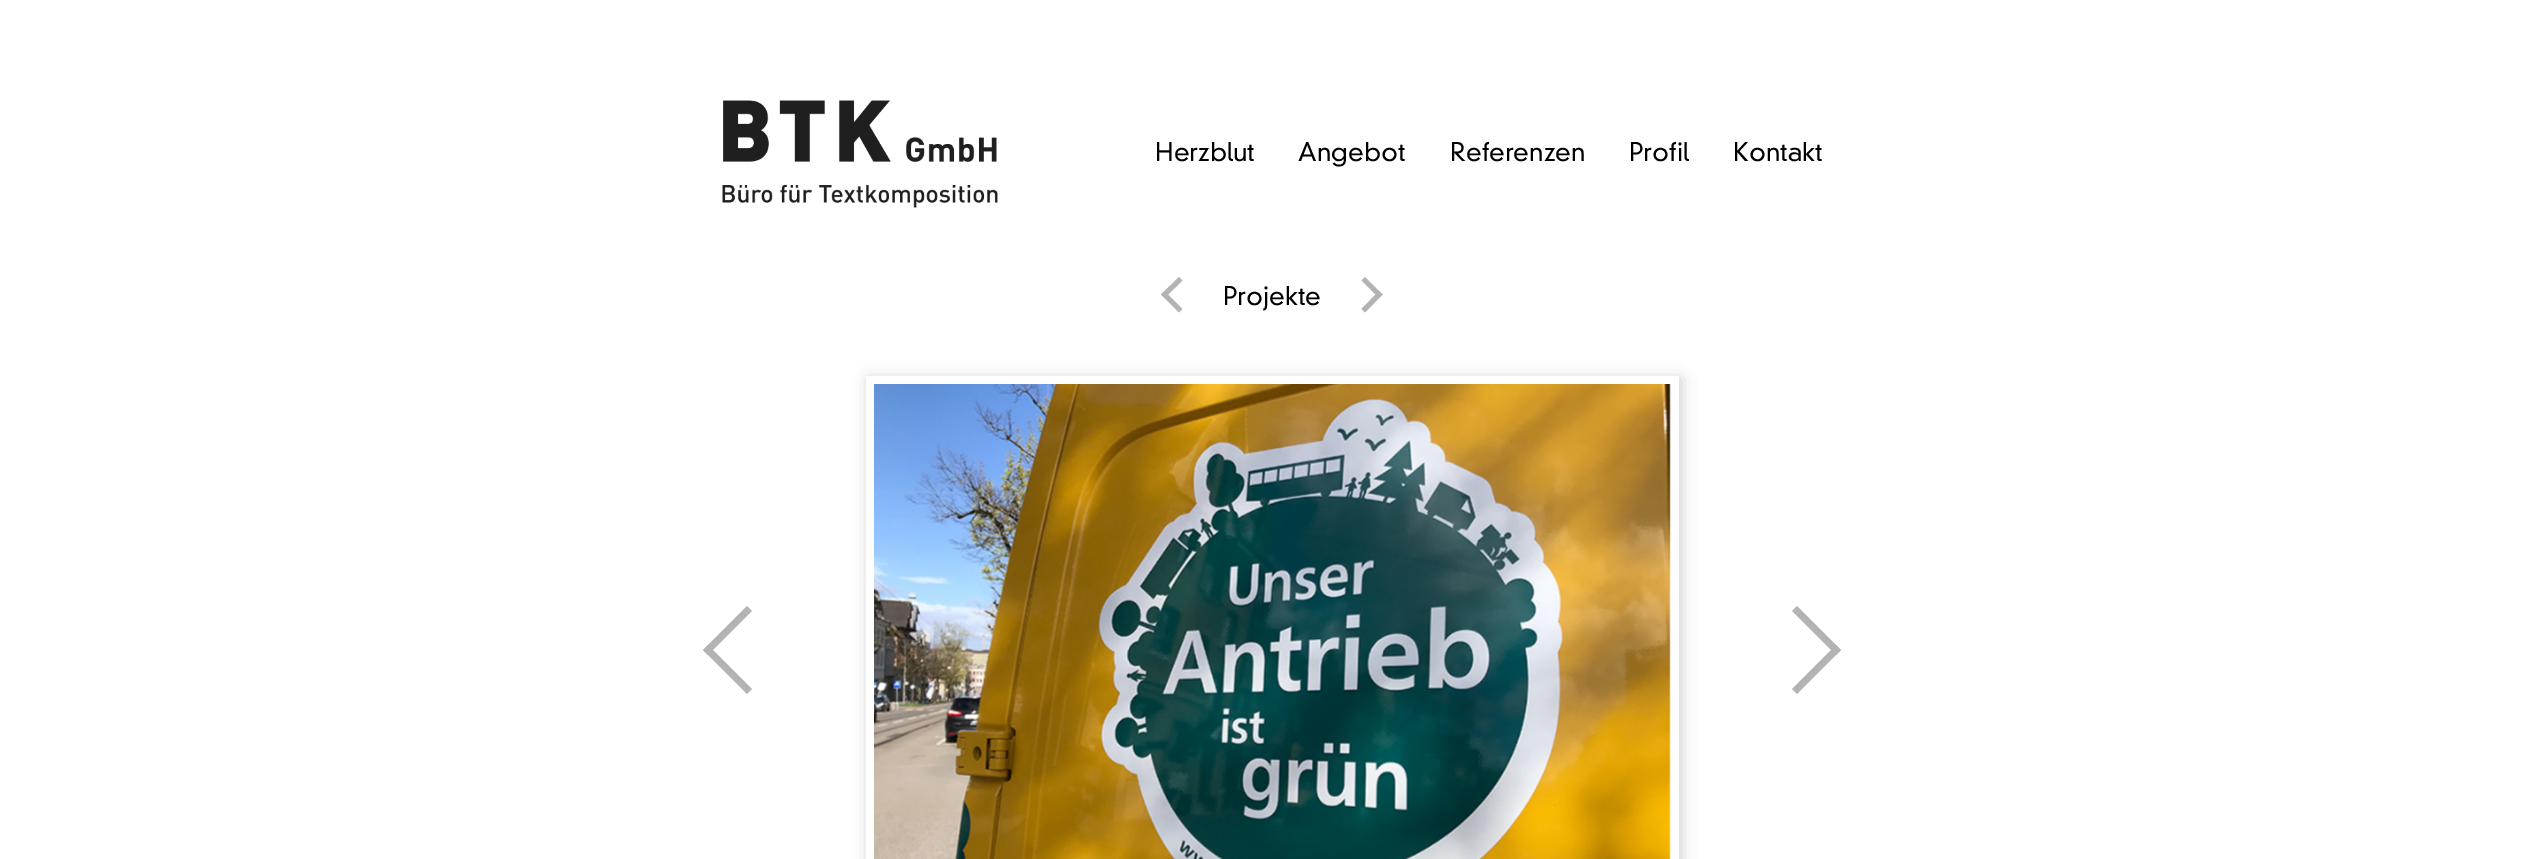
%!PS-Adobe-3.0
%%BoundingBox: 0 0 2543 859
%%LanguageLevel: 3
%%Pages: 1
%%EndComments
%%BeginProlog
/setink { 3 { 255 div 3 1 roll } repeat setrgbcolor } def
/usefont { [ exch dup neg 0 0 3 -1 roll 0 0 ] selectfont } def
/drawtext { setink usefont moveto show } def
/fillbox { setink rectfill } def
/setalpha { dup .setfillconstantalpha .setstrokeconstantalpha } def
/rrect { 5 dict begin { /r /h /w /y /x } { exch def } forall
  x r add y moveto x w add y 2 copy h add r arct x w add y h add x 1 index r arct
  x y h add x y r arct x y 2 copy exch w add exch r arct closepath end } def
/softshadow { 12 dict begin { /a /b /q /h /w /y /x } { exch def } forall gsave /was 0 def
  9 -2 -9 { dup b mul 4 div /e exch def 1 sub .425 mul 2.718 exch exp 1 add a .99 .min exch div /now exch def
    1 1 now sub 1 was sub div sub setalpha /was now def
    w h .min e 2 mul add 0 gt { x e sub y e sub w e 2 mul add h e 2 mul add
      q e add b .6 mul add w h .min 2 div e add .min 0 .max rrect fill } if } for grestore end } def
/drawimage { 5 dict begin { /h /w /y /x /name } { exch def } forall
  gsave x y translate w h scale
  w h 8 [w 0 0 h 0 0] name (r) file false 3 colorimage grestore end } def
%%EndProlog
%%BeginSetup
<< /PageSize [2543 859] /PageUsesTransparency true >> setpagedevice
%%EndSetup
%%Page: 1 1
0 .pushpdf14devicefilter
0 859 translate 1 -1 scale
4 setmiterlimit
0 0 2543 859 255 255 255 fillbox
(assets/img1.rgb) 722 100 276 108 drawimage
(Herzblut) 1155 161 /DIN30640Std-Light 25 0 0 0 drawtext
(Angebot) 1298 161 /DIN30640Std-Light 25 0 0 0 drawtext
(Referenzen) 1450 161 /DIN30640Std-Light 25 0 0 0 drawtext
(Profil) 1629 161 /DIN30640Std-Light 25 0 0 0 drawtext
(Kontakt) 1733 161 /DIN30640Std-Light 25 0 0 0 drawtext
179 179 179 setink
1179 312.5 moveto 1161 294.5 lineto 1164.5 291 lineto 1182.5 309 lineto closepath fill
1164.5 298 moveto 1161 294.5 lineto 1179 277 lineto 1182.5 280.5 lineto closepath fill
(Projekte) 1223 305 /DIN30640Std-Light 25 0 0 0 drawtext
179 179 179 setink
1365 277 moveto 1382.5 294.5 lineto 1379 298 lineto 1361.5 280.5 lineto closepath fill
1379 291 moveto 1382.5 294.5 lineto 1365 312.5 lineto 1361.5 309 lineto closepath fill
gsave
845 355 moveto 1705 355 lineto 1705 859 lineto 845 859 lineto closepath 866 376 moveto 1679 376 lineto 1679 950 lineto 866 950 lineto closepath eoclip newpath
0 0 0 setink
869 379 812 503 0 7.5 0.2 softshadow
grestore
(assets/img2.rgb) 874 384 797 475 drawimage
747 694 moveto 703 650 lineto 708 645 lineto 752 689 lineto closepath fill
708 655 moveto 703 650 lineto 747 606 lineto 752 611 lineto closepath fill
1797 606 moveto 1841 650 lineto 1836 655 lineto 1792 611 lineto closepath fill
1836 645 moveto 1841 650 lineto 1797 694 lineto 1792 689 lineto closepath fill
.poppdf14devicefilter showpage
%%EOF
